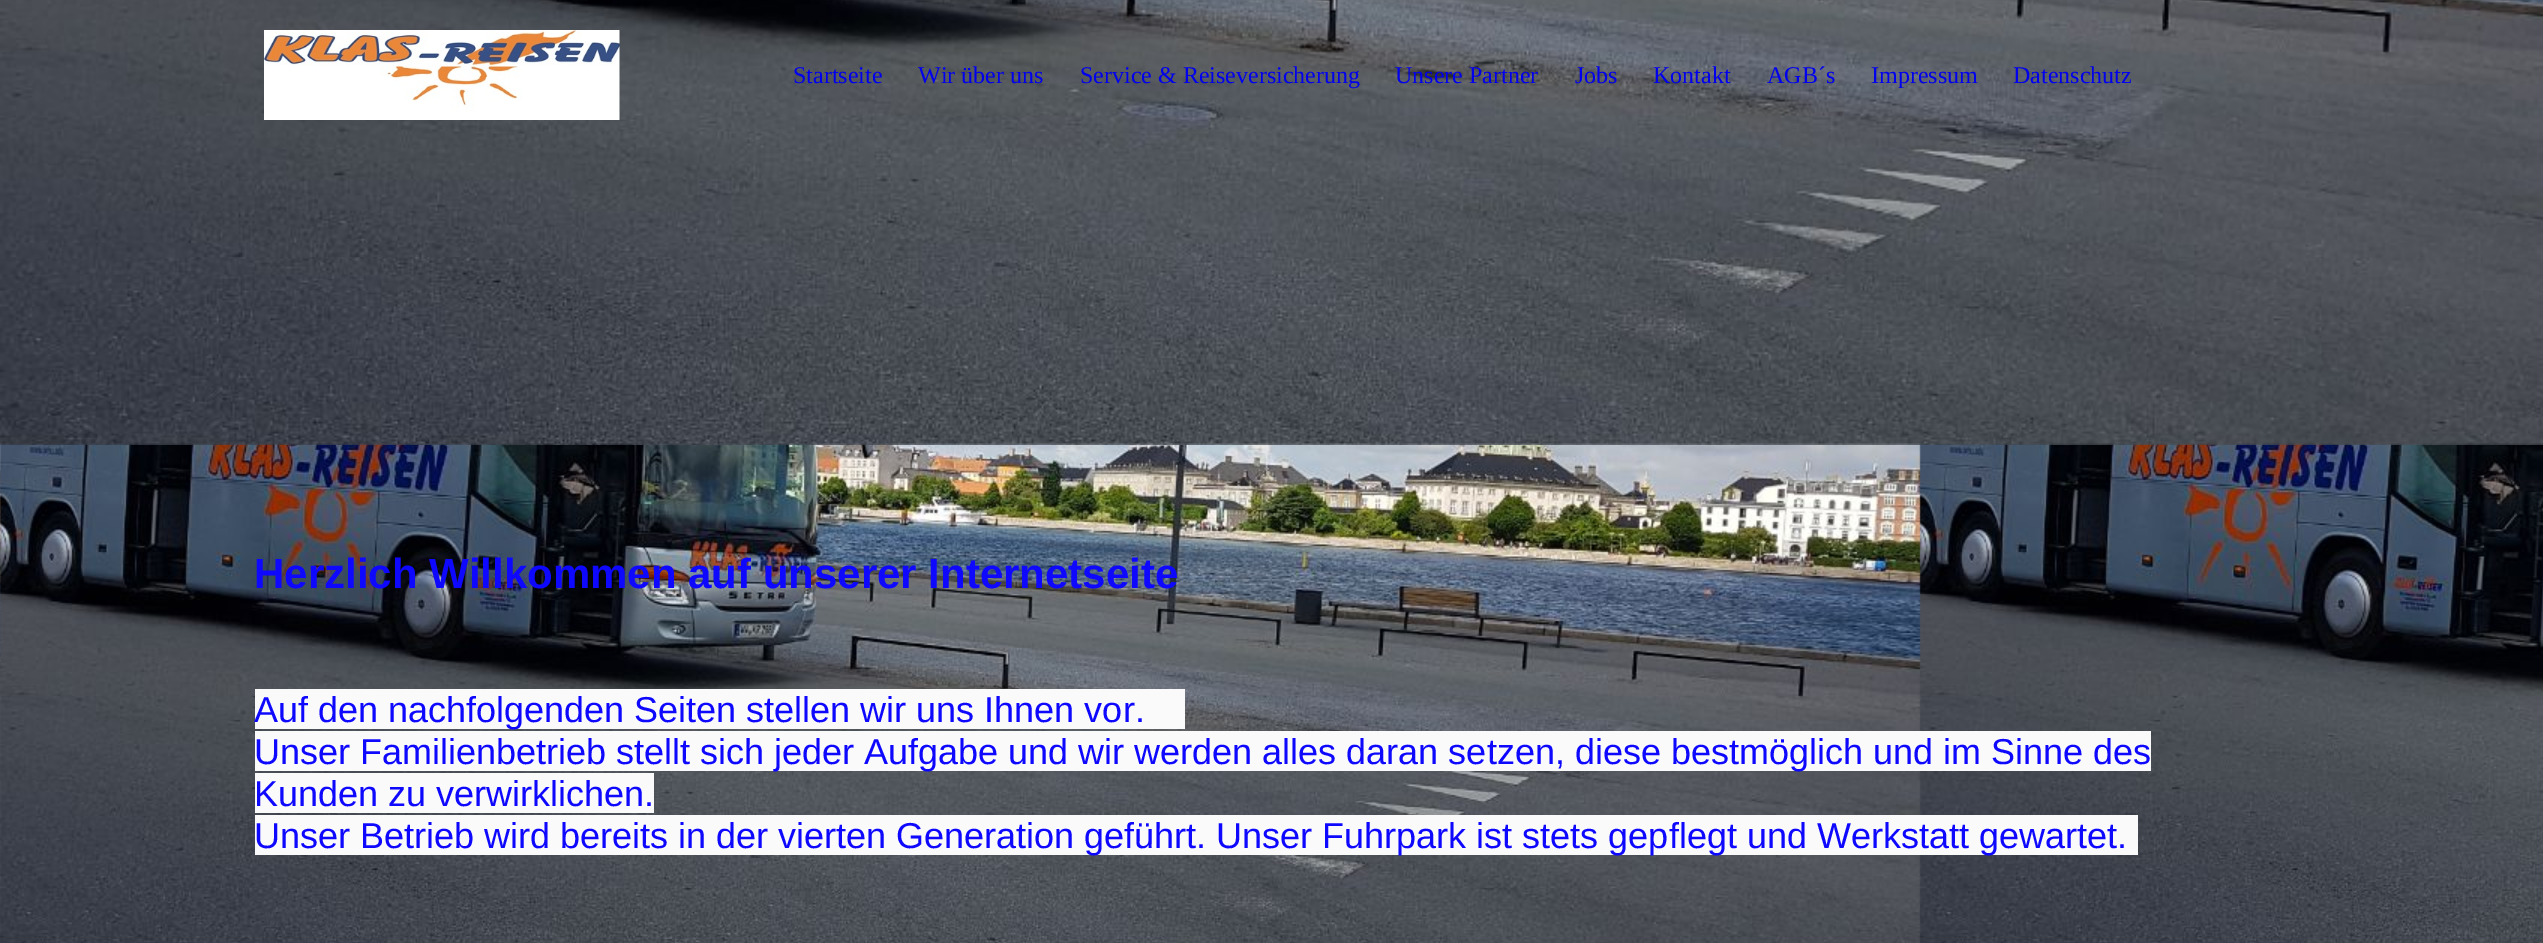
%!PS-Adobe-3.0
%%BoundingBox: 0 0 2543 943
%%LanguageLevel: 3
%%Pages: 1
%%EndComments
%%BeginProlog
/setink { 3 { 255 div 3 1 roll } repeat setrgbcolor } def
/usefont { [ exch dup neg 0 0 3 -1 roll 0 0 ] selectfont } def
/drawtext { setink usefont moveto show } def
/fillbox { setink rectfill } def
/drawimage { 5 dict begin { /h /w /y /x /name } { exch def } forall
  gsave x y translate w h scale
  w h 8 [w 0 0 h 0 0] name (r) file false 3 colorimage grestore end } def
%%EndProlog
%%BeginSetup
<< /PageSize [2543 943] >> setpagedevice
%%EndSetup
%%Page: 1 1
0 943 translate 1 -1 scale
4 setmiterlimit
0 0 2543 943 255 255 255 fillbox
(assets/img3.rgb) 0 443 2543 500 drawimage
(assets/img1.rgb) 0 0 2543 445 drawimage
(assets/img2.rgb) 264 30 356 90 drawimage
(Startseite) 793 83 /LiberationSerif-Regular 24 0 0 238 drawtext
(Wir über uns) 918 83 /LiberationSerif-Regular 24 0 0 238 drawtext
(Service & Reiseversicherung) 1080 83 /LiberationSerif-Regular 24 0 0 238 drawtext
(Unsere Partner) 1395 83 /LiberationSerif-Regular 24 0 0 238 drawtext
(Jobs) 1575 83 /LiberationSerif-Regular 24 0 0 238 drawtext
(Kontakt) 1653 83 /LiberationSerif-Regular 24 0 0 238 drawtext
(AGB´s) 1767 83 /LiberationSerif-Regular 24 0 0 238 drawtext
(Impressum) 1871 83 /LiberationSerif-Regular 24 0 0 238 drawtext
(Datenschutz) 2013 83 /LiberationSerif-Regular 24 0 0 238 drawtext
(Herzlich Willkommen auf unserer Internetseite) 254 588 /LiberationSans-Bold 42 14 8 255 drawtext
255 689 930 40 250 250 250 fillbox
(Auf den nachfolgenden Seiten stellen wir uns Ihnen vor.) 254 722 /LiberationSans-Regular 36 14 8 255 drawtext
255 731 1896 40 250 250 250 fillbox
(Unser Familienbetrieb stellt sich jeder Aufgabe und wir werden alles daran setzen, diese bestmöglich und im Sinne des) 254 764 /LiberationSans-Regular 36 14 8 255 drawtext
255 773 399 40 250 250 250 fillbox
(Kunden zu verwirklichen.) 254 806 /LiberationSans-Regular 36 14 8 255 drawtext
255 815 1883 40 250 250 250 fillbox
(Unser Betrieb wird bereits in der vierten Generation geführt. Unser Fuhrpark ist stets gepflegt und Werkstatt gewartet.) 254 848 /LiberationSans-Regular 36 14 8 255 drawtext
showpage
%%EOF
